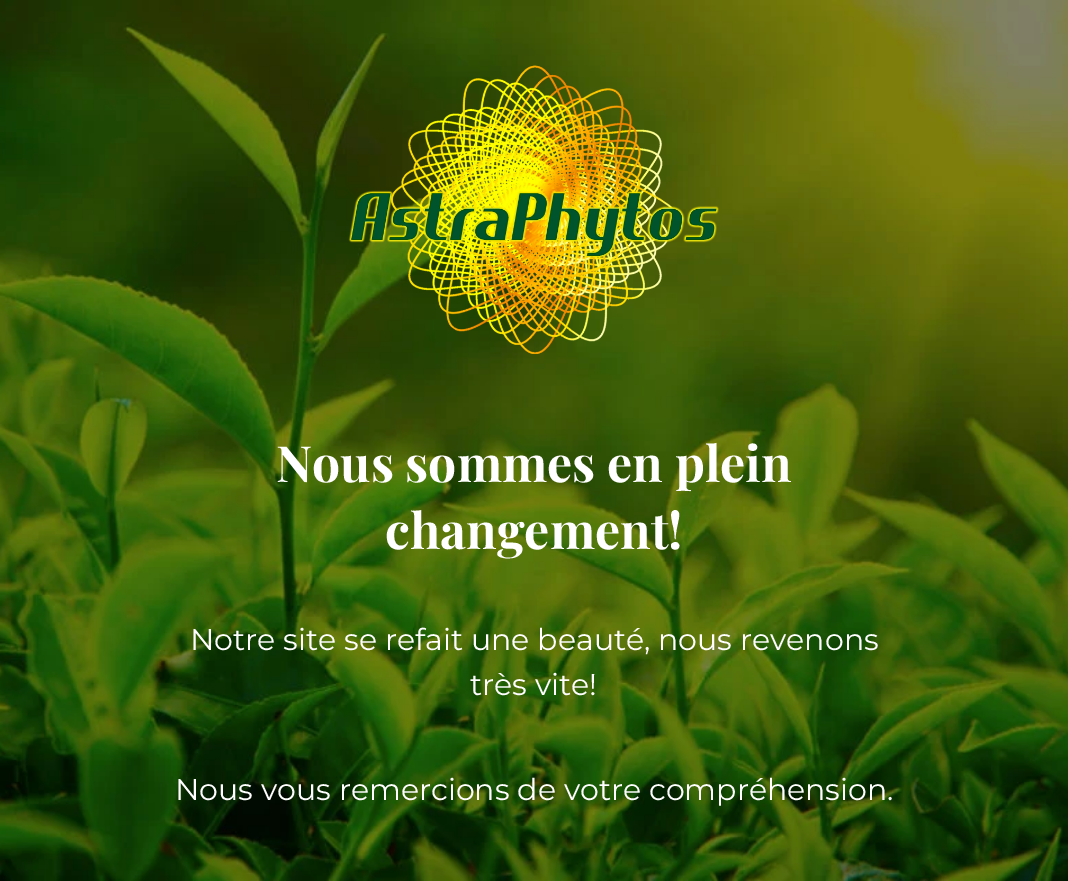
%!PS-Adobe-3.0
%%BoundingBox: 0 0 1068 881
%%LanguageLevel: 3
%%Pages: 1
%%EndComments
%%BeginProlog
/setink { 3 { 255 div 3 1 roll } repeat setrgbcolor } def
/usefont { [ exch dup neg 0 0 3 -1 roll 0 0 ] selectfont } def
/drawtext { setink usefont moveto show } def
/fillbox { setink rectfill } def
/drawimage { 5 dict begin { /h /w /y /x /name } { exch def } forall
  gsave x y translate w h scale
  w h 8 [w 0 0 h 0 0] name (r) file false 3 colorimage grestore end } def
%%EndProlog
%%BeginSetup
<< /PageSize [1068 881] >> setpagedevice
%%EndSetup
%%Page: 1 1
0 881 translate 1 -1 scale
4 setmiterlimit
0 0 1068 881 255 255 255 fillbox
(assets/img1.rgb) 0 0 1068 881 drawimage
(assets/img2.rgb) 348 65 371 289 drawimage
(Nous sommes en plein) 276 482 /PlayfairDisplay-Bold 50 255 255 255 drawtext
(changement!) 385 549 /PlayfairDisplay-Bold 50 255 255 255 drawtext
(Notre site se refait une beauté, nous revenons) 190 650 /Montserrat-Regular 30 255 255 255 drawtext
(très vite!) 470 695 /Montserrat-Regular 30 255 255 255 drawtext
(Nous vous remercions de votre compréhension.) 175 800 /Montserrat-Regular 30 255 255 255 drawtext
showpage
%%EOF
